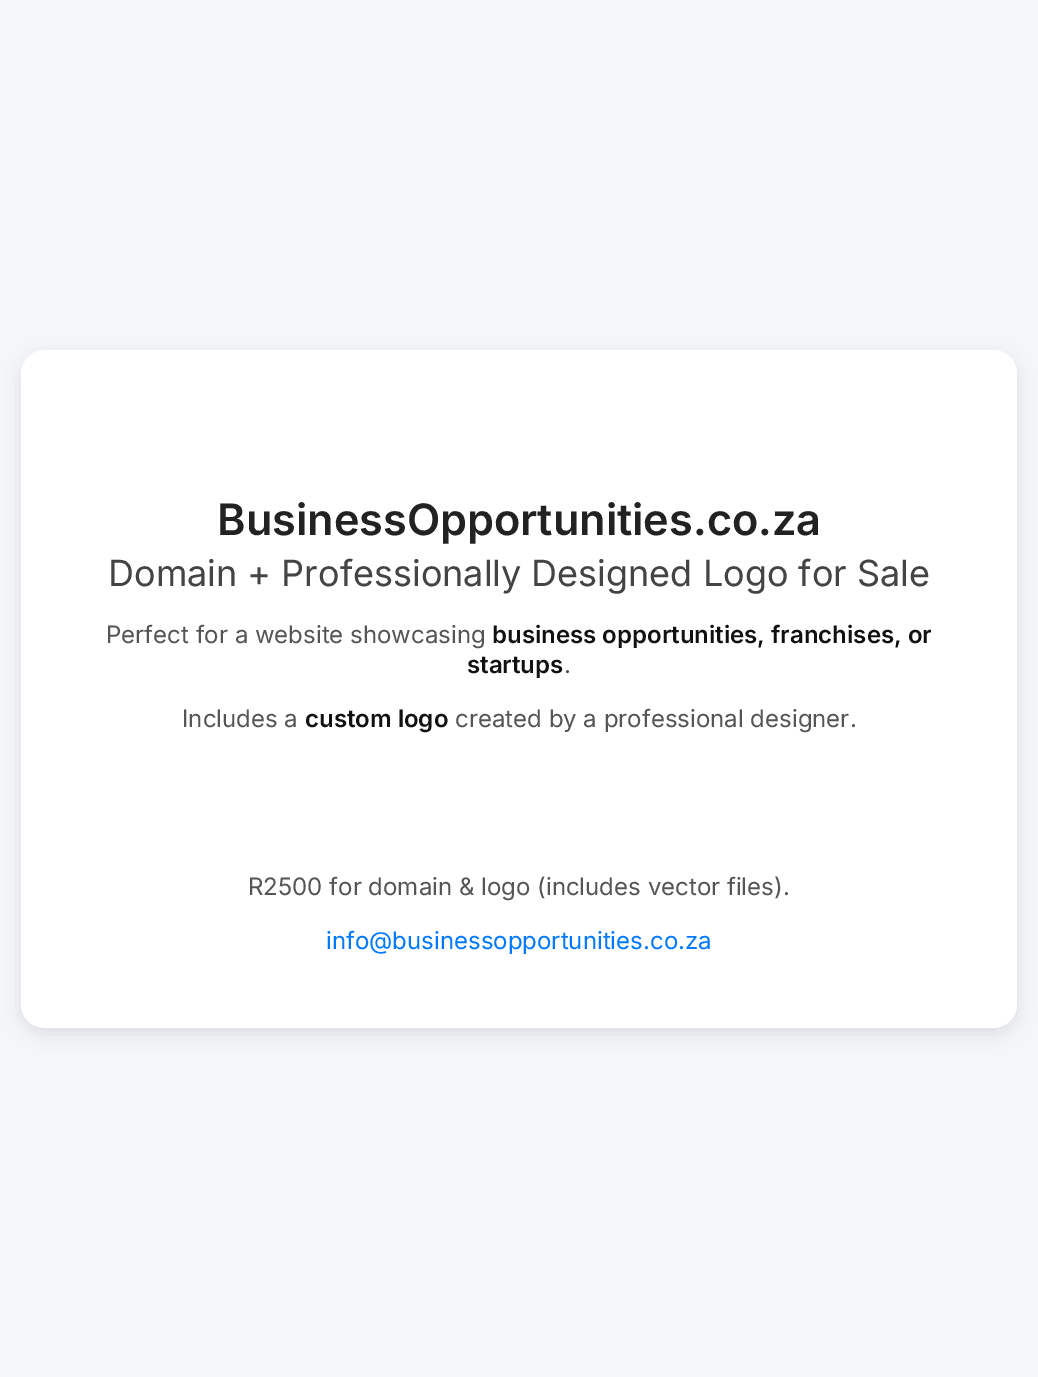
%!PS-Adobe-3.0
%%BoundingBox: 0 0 1038 1377
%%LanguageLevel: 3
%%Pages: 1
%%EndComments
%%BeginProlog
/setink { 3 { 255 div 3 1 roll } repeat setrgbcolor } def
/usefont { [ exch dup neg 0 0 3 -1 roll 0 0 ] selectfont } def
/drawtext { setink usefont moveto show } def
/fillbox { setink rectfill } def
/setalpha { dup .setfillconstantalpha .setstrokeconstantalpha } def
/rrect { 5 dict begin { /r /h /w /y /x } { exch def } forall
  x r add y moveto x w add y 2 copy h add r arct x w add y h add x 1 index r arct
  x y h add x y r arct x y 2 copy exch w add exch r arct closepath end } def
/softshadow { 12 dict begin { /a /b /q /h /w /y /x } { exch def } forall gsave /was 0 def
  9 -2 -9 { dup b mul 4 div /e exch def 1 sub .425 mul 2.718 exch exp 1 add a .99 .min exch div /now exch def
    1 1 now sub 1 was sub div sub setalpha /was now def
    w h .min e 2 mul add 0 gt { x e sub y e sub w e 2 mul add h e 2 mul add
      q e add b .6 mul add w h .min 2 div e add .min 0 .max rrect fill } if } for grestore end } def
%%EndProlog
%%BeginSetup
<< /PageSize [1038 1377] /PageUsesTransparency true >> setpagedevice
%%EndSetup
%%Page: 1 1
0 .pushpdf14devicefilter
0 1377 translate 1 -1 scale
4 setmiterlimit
0 0 1038 1377 245 246 250 fillbox
0 0 0 setink
21 356 996 678 24 9 0.1 softshadow
255 255 255 setink
21 350 996 678 24 rrect fill
(BusinessOpportunities.co.za) 217 535 /Inter-SemiBold 43.25 34 34 34 drawtext
(Domain + Professionally Designed Logo for Sale) 108 586 /Inter-Regular 36 68 68 68 drawtext
(Perfect for a website showcasing) 106 643 /Inter-Regular 24 85 85 85 drawtext
(business opportunities, franchises, or) 492 643 /Inter-SemiBold 24 17 17 17 drawtext
(startups) 467 673 /Inter-SemiBold 24 17 17 17 drawtext
(.) 564 673 /Inter-Regular 24 85 85 85 drawtext
(Includes a) 182 727 /Inter-Regular 24 85 85 85 drawtext
(custom logo) 305 727 /Inter-SemiBold 24 17 17 17 drawtext
(created by a professional designer.) 455 727 /Inter-Regular 24 85 85 85 drawtext
(R2500 for domain & logo \(includes vector files\).) 248 895 /Inter-Regular 24 85 85 85 drawtext
(info@businessopportunities.co.za) 326 949 /Inter-Regular 24 0 120 255 drawtext
.poppdf14devicefilter showpage
%%EOF
